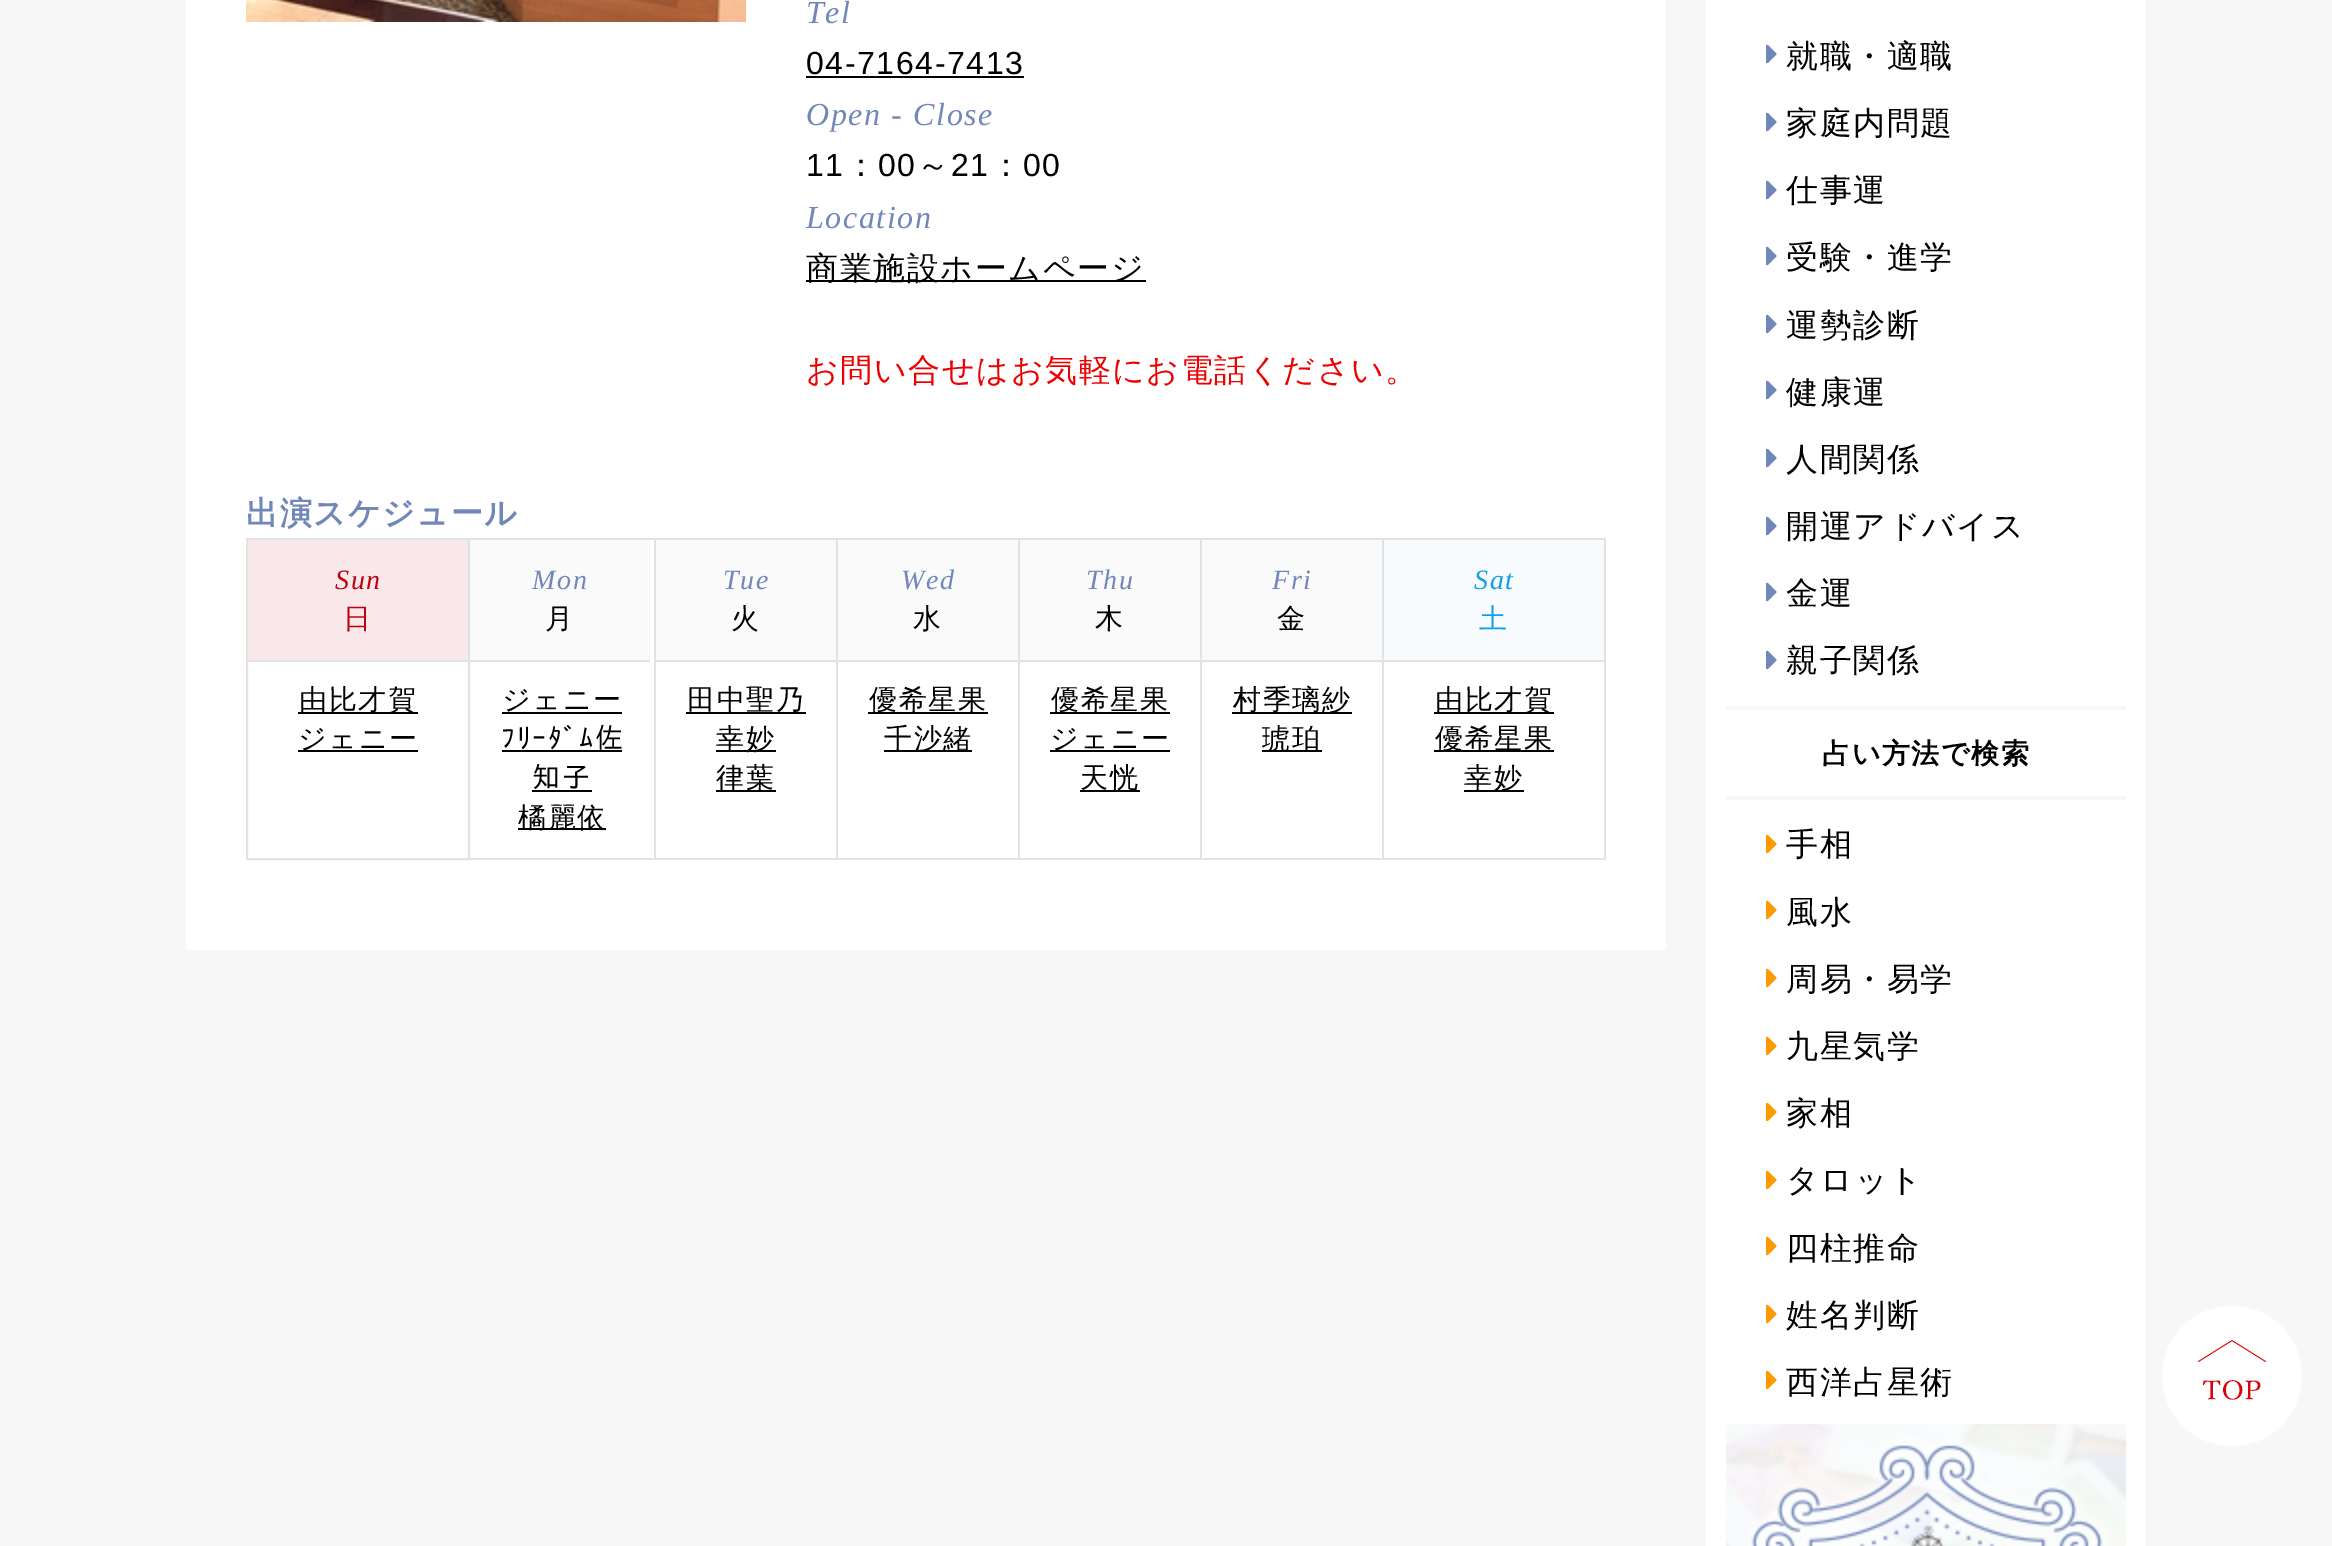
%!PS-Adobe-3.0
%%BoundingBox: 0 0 2332 1546
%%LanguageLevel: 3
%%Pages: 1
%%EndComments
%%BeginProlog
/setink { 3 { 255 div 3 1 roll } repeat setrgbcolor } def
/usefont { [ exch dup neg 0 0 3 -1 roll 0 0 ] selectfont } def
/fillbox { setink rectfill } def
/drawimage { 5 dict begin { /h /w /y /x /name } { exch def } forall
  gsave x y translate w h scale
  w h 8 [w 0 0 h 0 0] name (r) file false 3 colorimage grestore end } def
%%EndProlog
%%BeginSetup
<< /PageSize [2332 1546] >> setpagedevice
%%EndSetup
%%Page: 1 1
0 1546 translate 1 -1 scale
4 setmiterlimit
0 0 2332 1546 247 247 247 fillbox
186 0 1480 950 255 255 255 fillbox
(assets/img1.rgb) 246 0 500 22 drawimage
/LiberationSerif-Italic 32 usefont
113 134 185 setink
806 23 moveto 1.6 0 (Tel) ashow
/LiberationSans-Regular 32 usefont
0 0 0 setink
806 74 moveto 1.6 0 (04-7164-7413) ashow
806 76 218 2 0 0 0 fillbox
/LiberationSerif-Italic 32 usefont
113 134 185 setink
806 125 moveto 1.6 0 (Open - Close) ashow
/LiberationSans-Regular 32 usefont
0 0 0 setink
806 176 moveto 1.6 0 (11) ashow
/WenQuanYiZenHei-Medium 32 usefont
845 176 moveto 1.6 0 (：) ashow
/LiberationSans-Regular 32 usefont
878 176 moveto 1.6 0 (00) ashow
/WenQuanYiZenHei-Medium 32 usefont
917 176 moveto 1.6 0 (～) ashow
/LiberationSans-Regular 32 usefont
951 176 moveto 1.6 0 (21) ashow
/WenQuanYiZenHei-Medium 32 usefont
990 176 moveto 1.6 0 (：) ashow
/LiberationSans-Regular 32 usefont
1023 176 moveto 1.6 0 (00) ashow
/LiberationSerif-Italic 32 usefont
113 134 185 setink
806 228 moveto 1.6 0 (Location) ashow
806 280 340 2 0 0 0 fillbox
/WenQuanYiZenHei-Medium 32 usefont
806 279 moveto 1.6 0 (商業施設ホームページ) ashow
238 0 0 setink
806 381 moveto 1.6 0 (お問い合せはお気軽にお電話ください。) ashow
/WenQuanYiZenHei-Bold 32 usefont
113 134 185 setink
246 524 moveto 1.6 0 (出演スケジュール) ashow
226 226 226 setink
2 setlinewidth
247 539 222 320 rectstroke
248 540 220 120 249 232 233 fillbox
248 660 220 2 226 226 226 fillbox
/LiberationSerif-Italic 28 usefont
189 1 15 setink
335 589 moveto 1.6 0 (Sun) ashow
/WenQuanYiZenHei-Medium 28 usefont
343 628 moveto 1.6 0 (日) ashow
298 712 120 2 0 0 0 fillbox
299 709 moveto 1.6 0 (由比才賀) ashow
298 750 120 2 0 0 0 fillbox
298 748 moveto 1.6 0 (ジェニー) ashow
470 538 1136 2 226 226 226 fillbox
654 538 2 322 226 226 226 fillbox
470 858 186 2 226 226 226 fillbox
470 540 180 120 250 250 250 fillbox
470 660 180 2 226 226 226 fillbox
/LiberationSerif-Italic 28 usefont
113 134 185 setink
532 589 moveto 1.6 0 (Mon) ashow
/WenQuanYiZenHei-Medium 28 usefont
0 0 0 setink
545 628 moveto 1.6 0 (月) ashow
502 709 moveto 1.6 0 (ジェニー) ashow
502 712 120 2 0 0 0 fillbox
/IPAPGothic-Regular 28 usefont
501 748 moveto 1.6 0 (ﾌﾘｰﾀﾞﾑ佐) ashow
502 750 120 2 0 0 0 fillbox
532 787 moveto 1.6 0 (知子) ashow
532 790 60 2 0 0 0 fillbox
518 828 88 2 0 0 0 fillbox
/WenQuanYiZenHei-Medium 28 usefont
518 827 moveto 1.6 0 (橘麗依) ashow
836 538 2 322 226 226 226 fillbox
656 858 182 2 226 226 226 fillbox
656 540 180 120 250 250 250 fillbox
656 660 180 2 226 226 226 fillbox
/LiberationSerif-Italic 28 usefont
113 134 185 setink
723 589 moveto 1.6 0 (Tue) ashow
/WenQuanYiZenHei-Medium 28 usefont
0 0 0 setink
731 628 moveto 1.6 0 (火) ashow
686 712 120 2 0 0 0 fillbox
687 709 moveto 1.6 0 (田中聖乃) ashow
716 750 60 2 0 0 0 fillbox
716 748 moveto 1.6 0 (幸妙) ashow
716 790 60 2 0 0 0 fillbox
716 787 moveto 1.6 0 (律葉) ashow
1018 538 2 322 226 226 226 fillbox
838 858 182 2 226 226 226 fillbox
838 540 180 120 250 250 250 fillbox
838 660 180 2 226 226 226 fillbox
/LiberationSerif-Italic 28 usefont
113 134 185 setink
901 589 moveto 1.6 0 (Wed) ashow
/WenQuanYiZenHei-Medium 28 usefont
0 0 0 setink
913 628 moveto 1.6 0 (水) ashow
868 712 120 2 0 0 0 fillbox
869 709 moveto 1.6 0 (優希星果) ashow
884 750 88 2 0 0 0 fillbox
884 748 moveto 1.6 0 (千沙緒) ashow
1200 538 2 322 226 226 226 fillbox
1020 858 182 2 226 226 226 fillbox
1020 540 180 120 250 250 250 fillbox
1020 660 180 2 226 226 226 fillbox
/LiberationSerif-Italic 28 usefont
113 134 185 setink
1086 589 moveto 1.6 0 (Thu) ashow
/WenQuanYiZenHei-Medium 28 usefont
0 0 0 setink
1095 628 moveto 1.6 0 (木) ashow
1050 712 120 2 0 0 0 fillbox
1051 709 moveto 1.6 0 (優希星果) ashow
1050 750 120 2 0 0 0 fillbox
1050 748 moveto 1.6 0 (ジェニー) ashow
1080 790 60 2 0 0 0 fillbox
1080 787 moveto 1.6 0 (天恍) ashow
1382 538 2 322 226 226 226 fillbox
1202 858 182 2 226 226 226 fillbox
1202 540 180 120 250 250 250 fillbox
1202 660 180 2 226 226 226 fillbox
/LiberationSerif-Italic 28 usefont
113 134 185 setink
1272 589 moveto 1.6 0 (Fri) ashow
/WenQuanYiZenHei-Medium 28 usefont
0 0 0 setink
1277 628 moveto 1.6 0 (金) ashow
1232 712 120 2 0 0 0 fillbox
1233 709 moveto 1.6 0 (村季璃紗) ashow
1262 750 60 2 0 0 0 fillbox
1262 748 moveto 1.6 0 (琥珀) ashow
1604 538 2 322 226 226 226 fillbox
1384 858 222 2 226 226 226 fillbox
1384 540 220 120 247 251 254 fillbox
1384 660 220 2 226 226 226 fillbox
/LiberationSerif-Italic 28 usefont
18 159 232 setink
1474 589 moveto 1.6 0 (Sat) ashow
/WenQuanYiZenHei-Medium 28 usefont
1479 628 moveto 1.6 0 (土) ashow
1434 712 120 2 0 0 0 fillbox
1435 709 moveto 1.6 0 (由比才賀) ashow
1434 750 120 2 0 0 0 fillbox
1435 748 moveto 1.6 0 (優希星果) ashow
1464 790 60 2 0 0 0 fillbox
1464 787 moveto 1.6 0 (幸妙) ashow
1706 0 440 1546 255 255 255 fillbox
(assets/img2.rgb) 1766 44 11 20 drawimage
/WenQuanYiZenHei-Medium 32 usefont
0 0 0 setink
1786 67 moveto 1.6 0 (就職・適職) ashow
(assets/img2.rgb) 1766 112 11 20 drawimage
1786 134 moveto 1.6 0 (家庭内問題) ashow
(assets/img2.rgb) 1766 180 11 20 drawimage
1786 201 moveto 1.6 0 (仕事運) ashow
(assets/img2.rgb) 1766 246 11 20 drawimage
1786 268 moveto 1.6 0 (受験・進学) ashow
(assets/img2.rgb) 1766 314 11 20 drawimage
1786 336 moveto 1.6 0 (運勢診断) ashow
(assets/img2.rgb) 1766 380 11 20 drawimage
1786 403 moveto 1.6 0 (健康運) ashow
(assets/img2.rgb) 1766 448 11 20 drawimage
1786 470 moveto 1.6 0 (人間関係) ashow
(assets/img2.rgb) 1766 516 11 20 drawimage
1786 537 moveto 1.6 0 (開運アドバイス) ashow
(assets/img2.rgb) 1766 582 11 20 drawimage
1786 604 moveto 1.6 0 (金運) ashow
(assets/img2.rgb) 1766 650 11 20 drawimage
1786 671 moveto 1.6 0 (親子関係) ashow
1726 706 400 4 247 247 247 fillbox
1726 796 400 4 247 247 247 fillbox
/WenQuanYiZenHei-Bold 28 usefont
0 0 0 setink
1822 763 moveto 1.6 0 (占い方法で検索) ashow
(assets/img3.rgb) 1766 834 11 20 drawimage
/WenQuanYiZenHei-Medium 32 usefont
1786 855 moveto 1.6 0 (手相) ashow
(assets/img3.rgb) 1766 900 11 20 drawimage
1786 923 moveto 1.6 0 (風水) ashow
(assets/img3.rgb) 1766 968 11 20 drawimage
1786 990 moveto 1.6 0 (周易・易学) ashow
(assets/img3.rgb) 1766 1036 11 20 drawimage
1786 1057 moveto 1.6 0 (九星気学) ashow
(assets/img3.rgb) 1766 1102 11 20 drawimage
1786 1124 moveto 1.6 0 (家相) ashow
(assets/img3.rgb) 1766 1170 11 20 drawimage
1786 1191 moveto 1.6 0 (タロット) ashow
(assets/img3.rgb) 1766 1236 11 20 drawimage
1786 1259 moveto 1.6 0 (四柱推命) ashow
(assets/img3.rgb) 1766 1304 11 20 drawimage
1786 1326 moveto 1.6 0 (姓名判断) ashow
(assets/img3.rgb) 1766 1370 11 20 drawimage
1786 1393 moveto 1.6 0 (西洋占星術) ashow
(assets/img4.rgb) 1726 1424 400 122 drawimage
(assets/img5.rgb) 2162 1306 140 140 drawimage
showpage
%%EOF
